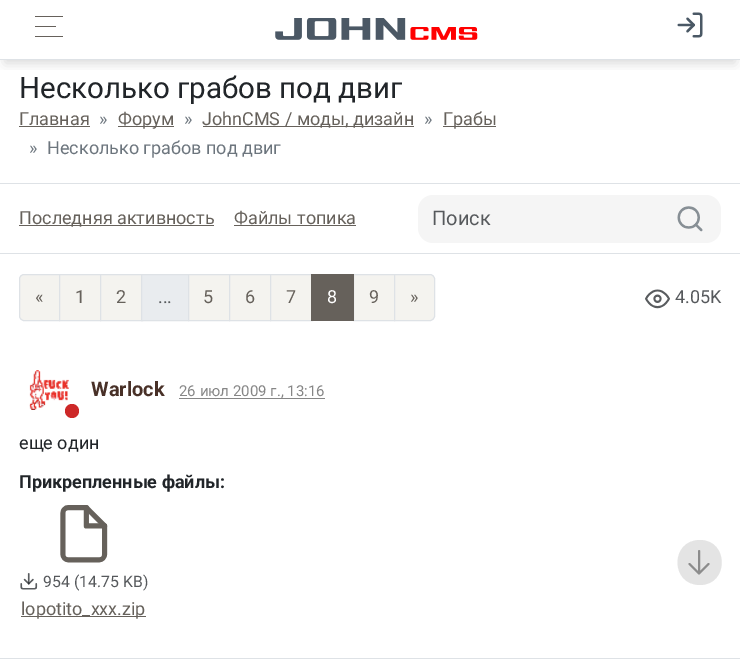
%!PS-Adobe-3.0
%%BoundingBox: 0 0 740 664
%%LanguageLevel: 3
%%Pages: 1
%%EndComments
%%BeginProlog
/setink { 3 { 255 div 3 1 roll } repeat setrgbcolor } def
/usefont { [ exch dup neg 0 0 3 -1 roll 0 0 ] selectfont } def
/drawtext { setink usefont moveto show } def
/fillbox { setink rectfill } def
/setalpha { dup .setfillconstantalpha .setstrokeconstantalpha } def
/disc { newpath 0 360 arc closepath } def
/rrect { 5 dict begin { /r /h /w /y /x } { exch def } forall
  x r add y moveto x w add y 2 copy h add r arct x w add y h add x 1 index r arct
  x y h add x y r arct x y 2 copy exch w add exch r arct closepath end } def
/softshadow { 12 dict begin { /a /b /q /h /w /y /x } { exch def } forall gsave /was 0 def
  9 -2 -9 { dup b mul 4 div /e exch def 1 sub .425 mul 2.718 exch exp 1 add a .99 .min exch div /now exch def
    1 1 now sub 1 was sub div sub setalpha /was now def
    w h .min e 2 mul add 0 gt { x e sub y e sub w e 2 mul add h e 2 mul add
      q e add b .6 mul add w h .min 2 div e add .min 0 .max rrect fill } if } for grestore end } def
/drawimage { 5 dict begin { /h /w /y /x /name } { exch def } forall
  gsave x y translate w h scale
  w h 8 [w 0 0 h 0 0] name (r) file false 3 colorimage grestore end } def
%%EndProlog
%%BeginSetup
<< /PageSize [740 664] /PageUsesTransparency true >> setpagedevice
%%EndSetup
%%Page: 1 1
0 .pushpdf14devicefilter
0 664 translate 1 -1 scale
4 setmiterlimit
0 0 740 664 255 255 255 fillbox
gsave
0 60 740 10 rectclip
0 0 0 setink
5 13 730 50 0 6 0.15 softshadow
grestore
0 59 740 1 222 226 230 fillbox
102 97 91 setink
35 16 28 1 0.5 rrect fill
35 26 21 1 0.5 rrect fill
35 36 28 1 0.5 rrect fill
(assets/img1.rgb) 275 18 203 22 drawimage
(assets/img2.rgb) 677 12 26 26 drawimage
(Несколько грабов под двиг) 19 98 /Roboto-Regular 29.5 33 37 41 drawtext
(Главная) 19 125 /Roboto-Regular 18 102 97 91 drawtext
19 126 71 1 102 97 91 fillbox
(») 99 125 /Roboto-Regular 18 108 117 125 drawtext
118 126 56 1 102 97 91 fillbox
(Форум) 118 125 /Roboto-Regular 18 102 97 91 drawtext
(») 184 125 /Roboto-Regular 18 108 117 125 drawtext
203 126 211 1 102 97 91 fillbox
(JohnCMS / моды, дизайн) 202 125 /Roboto-Regular 18 102 97 91 drawtext
(») 424 125 /Roboto-Regular 18 108 117 125 drawtext
443 126 53 1 102 97 91 fillbox
(Грабы) 443 125 /Roboto-Regular 18 102 97 91 drawtext
(») 29 154 /Roboto-Regular 18 108 117 125 drawtext
(Несколько грабов под двиг) 47 154 /Roboto-Regular 18 108 117 125 drawtext
0 183 740 1 222 226 230 fillbox
0 253 740 1 222 226 230 fillbox
19 225 195 1 102 97 91 fillbox
(Последняя активность) 19 224 /Roboto-Regular 18 102 97 91 drawtext
(Файлы топика) 234 224 /Roboto-Regular 18 102 97 91 drawtext
234 225 122 1 102 97 91 fillbox
245 245 245 setink
418 195 303 48 15 rrect fill
(Поиск) 432 225 /Roboto-Regular 20 86 89 92 drawtext
(assets/img3.rgb) 677 206 26 26 drawimage
244 243 239 setink
24 274.5 moveto 59.5 274.5 lineto 59.5 320.5 lineto 24 320.5 lineto 21.5 320.5 19.5 318.5 19.5 316 curveto 19.5 279 lineto 19.5 276.5 21.5 274.5 24 274.5 curveto closepath gsave fill grestore
222 226 230 setink
stroke
(«) 35 303 /Roboto-Regular 18 102 97 91 drawtext
244 243 239 setink
59.5 274.5 moveto 100.5 274.5 lineto 100.5 320.5 lineto 59.5 320.5 lineto closepath gsave fill grestore
222 226 230 setink
stroke
(1) 75 303 /Roboto-Regular 18 102 97 91 drawtext
101 275 40 45 244 243 239 fillbox
222 226 230 setink
100.5 274.5 42 46 rectstroke
(2) 116 303 /Roboto-Regular 18 102 97 91 drawtext
233 236 239 setink
141.5 274.5 moveto 188.5 274.5 lineto 188.5 320.5 lineto 141.5 320.5 lineto closepath gsave fill grestore
222 226 230 setink
stroke
244 243 239 setink
188.5 274.5 moveto 229.5 274.5 lineto 229.5 320.5 lineto 188.5 320.5 lineto closepath gsave fill grestore
222 226 230 setink
stroke
(5) 203 303 /Roboto-Regular 18 102 97 91 drawtext
244 243 239 setink
229.5 274.5 moveto 270.5 274.5 lineto 270.5 320.5 lineto 229.5 320.5 lineto closepath gsave fill grestore
222 226 230 setink
stroke
(6) 245 303 /Roboto-Regular 18 102 97 91 drawtext
271 275 40 45 244 243 239 fillbox
222 226 230 setink
270.5 274.5 42 46 rectstroke
(7) 286 303 /Roboto-Regular 18 102 97 91 drawtext
244 243 239 setink
353.5 274.5 moveto 394.5 274.5 lineto 394.5 320.5 lineto 353.5 320.5 lineto closepath gsave fill grestore
222 226 230 setink
stroke
311 274 43 47 102 97 91 fillbox
(8) 327 303 /Roboto-Regular 18 255 255 255 drawtext
(9) 369 303 /Roboto-Regular 18 102 97 91 drawtext
244 243 239 setink
394.5 274.5 moveto 430 274.5 lineto 432.5 274.5 434.5 276.5 434.5 279 curveto 434.5 316 lineto 434.5 318.5 432.5 320.5 430 320.5 curveto 394.5 320.5 lineto closepath gsave fill grestore
222 226 230 setink
stroke
(») 410 303 /Roboto-Regular 18 102 97 91 drawtext
(...) 158 303 /Roboto-Regular 18 86 89 92 drawtext
(assets/img4.rgb) 645 289 25 20 drawimage
(4.05K) 675 303 /Roboto-Regular 18 86 89 92 drawtext
0 658 740 1 222 226 230 fillbox
(assets/img5.rgb) 29 370 40 40 drawimage
205 40 40 setink
72 411 7 disc fill
(Warlock) 91 396 /Roboto-Bold 20 72 48 39 drawtext
179 398 146 1 134 134 134 fillbox
(26 июл 2009 г., 13:16) 179 396 /Roboto-Regular 15 134 134 134 drawtext
(еще один) 19 449 /Roboto-Regular 18 33 37 41 drawtext
(Прикрепленные файлы:) 19 488 /Roboto-Bold 18 33 37 41 drawtext
(assets/img6.rgb) 60 505 48 58 drawimage
(assets/img7.rgb) 20 573 18 17 drawimage
(954) 43 587 /Roboto-Regular 15.75 86 89 92 drawtext
(\(14.75 KB\)) 74 587 /Roboto-Regular 15.75 86 89 92 drawtext
21 616 125 1 102 97 91 fillbox
(lopotito_xxx.zip) 21 615 /Roboto-Regular 18 102 97 91 drawtext
228 228 228 setink
700 585 moveto 670 585 670 540 700 540 curveto 729 540 729 585 700 585 curveto closepath fill
140 140 140 setink
1.9 setlinewidth
1 setlinecap
1 setlinejoin
708.5 564 moveto 699 573.5 lineto 699 573.5 moveto 689.5 564 lineto 699 573.5 moveto 699 551 lineto stroke
.poppdf14devicefilter showpage
%%EOF
